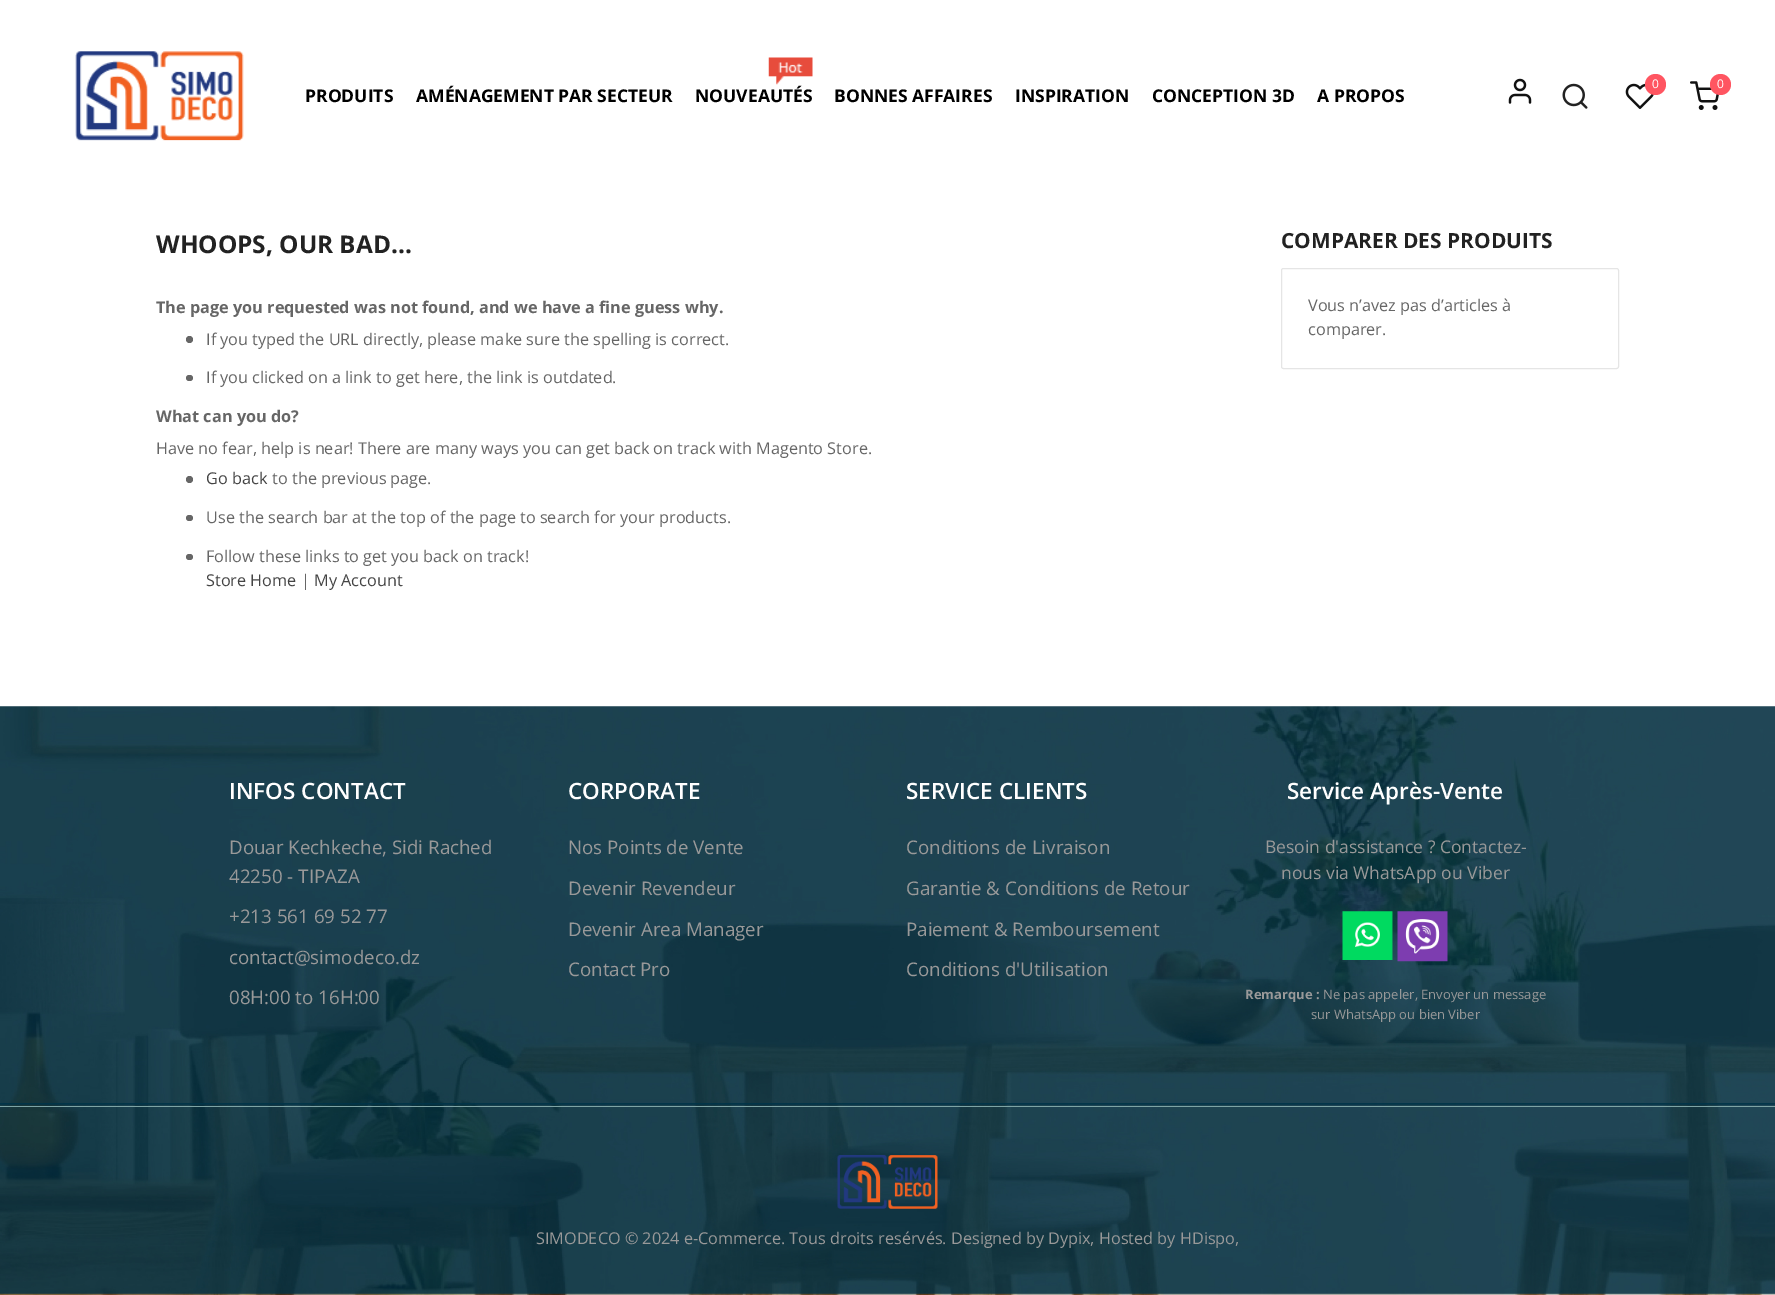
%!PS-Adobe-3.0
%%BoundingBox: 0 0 1775 1295
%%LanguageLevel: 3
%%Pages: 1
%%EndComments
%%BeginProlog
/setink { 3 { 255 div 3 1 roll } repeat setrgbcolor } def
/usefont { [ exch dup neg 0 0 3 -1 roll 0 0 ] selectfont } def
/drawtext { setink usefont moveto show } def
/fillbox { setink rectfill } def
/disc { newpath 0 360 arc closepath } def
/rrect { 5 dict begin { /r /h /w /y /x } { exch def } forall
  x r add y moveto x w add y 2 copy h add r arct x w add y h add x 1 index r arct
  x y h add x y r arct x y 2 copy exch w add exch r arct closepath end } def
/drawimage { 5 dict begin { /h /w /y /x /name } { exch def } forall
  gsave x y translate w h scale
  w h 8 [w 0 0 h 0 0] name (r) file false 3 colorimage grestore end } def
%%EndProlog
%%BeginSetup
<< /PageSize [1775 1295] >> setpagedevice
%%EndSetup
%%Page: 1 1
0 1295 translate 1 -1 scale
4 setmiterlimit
0 0 1775 1295 255 255 255 fillbox
(assets/img1.rgb) 75 51 169 90 drawimage
(assets/img2.rgb) 1508 78 24 26 drawimage
(assets/img3.rgb) 1562 83 26 26 drawimage
(assets/img4.rgb) 1625 83 29 26 drawimage
255 85 97 setink
1655.5 84.5 10.5 disc fill
(0) 1652 88 /OpenSans-Regular 12 255 255 255 drawtext
(assets/img5.rgb) 1690 81 29 29 drawimage
255 85 97 setink
1720.5 84.5 10.5 disc fill
(0) 1717 88 /OpenSans-Regular 12 255 255 255 drawtext
(PRODUITS) 305 102 /OpenSans-Bold 17.5 0 0 0 drawtext
(AMÉNAGEMENT PAR SECTEUR) 416 102 /OpenSans-Bold 17.5 0 0 0 drawtext
(assets/img6.rgb) 768 57 45 28 drawimage
(NOUVEAUTÉS) 695 102 /OpenSans-Bold 17.5 0 0 0 drawtext
(BONNES AFFAIRES) 834 102 /OpenSans-Bold 17.5 0 0 0 drawtext
(INSPIRATION) 1015 102 /OpenSans-Bold 17.5 0 0 0 drawtext
(CONCEPTION 3D) 1152 102 /OpenSans-Bold 17.5 0 0 0 drawtext
(A PROPOS) 1317 102 /OpenSans-Bold 17.5 0 0 0 drawtext
(WHOOPS, OUR BAD...) 156 253 /OpenSans-Bold 24.4 34 34 34 drawtext
(The page you requested was not found, and we have a fine guess why.) 156 313 /OpenSans-Bold 16.25 102 102 102 drawtext
189.5 339.5 3.5 disc fill
(If you typed the URL directly, please make sure the spelling is correct.) 206 345 /OpenSans-Regular 16.25 102 102 102 drawtext
186 375 7 6 3 rrect fill
(If you clicked on a link to get here, the link is outdated.) 206 383 /OpenSans-Regular 16.25 102 102 102 drawtext
(What can you do?) 156 422 /OpenSans-Bold 16.25 102 102 102 drawtext
(Have no fear, help is near! There are many ways you can get back on track with Magento Store.) 156 454 /OpenSans-Regular 16.25 102 102 102 drawtext
189.5 479.5 3.5 disc fill
(Go back) 206 484 /OpenSans-Regular 16.25 68 68 68 drawtext
(to the previous page.) 272 484 /OpenSans-Regular 16.25 102 102 102 drawtext
186 515 7 6 3 rrect fill
(Use the search bar at the top of the page to search for your products.) 206 523 /OpenSans-Regular 16.25 102 102 102 drawtext
186 554 7 6 3 rrect fill
(Follow these links to get you back on track!) 206 562 /OpenSans-Regular 16.25 102 102 102 drawtext
(Store Home) 206 586 /OpenSans-Regular 16.25 68 68 68 drawtext
(|) 301 586 /OpenSans-Regular 16.25 102 102 102 drawtext
(My Account) 314 586 /OpenSans-Regular 16.25 68 68 68 drawtext
(COMPARER DES PRODUITS) 1281 248 /OpenSans-Bold 20.9 34 34 34 drawtext
229 229 229 setink
1281.5 268.5 337 100 2 rrect stroke
(Vous n’avez pas d’articles à) 1308 311 /OpenSans-Regular 16.25 102 102 102 drawtext
(comparer.) 1308 335 /OpenSans-Regular 16.25 102 102 102 drawtext
(assets/img7.rgb) 0 706 1775 589 drawimage
(INFOS CONTACT) 229 799 /OpenSans-SemiBold 22.5 255 255 255 drawtext
(Douar Kechkeche, Sidi Rached) 229 854 /OpenSans-Regular 18.75 153 153 153 drawtext
(42250 - TIPAZA) 229 883 /OpenSans-Regular 18.75 153 153 153 drawtext
(+213 561 69 52 77) 229 923 /OpenSans-Regular 18.75 153 153 153 drawtext
(contact@simodeco.dz) 229 964 /OpenSans-Regular 18.75 153 153 153 drawtext
(08H:00 to 16H:00) 229 1004 /OpenSans-Regular 18.75 153 153 153 drawtext
(CORPORATE) 568 799 /OpenSans-SemiBold 22.5 255 255 255 drawtext
(Nos Points de Vente) 568 854 /OpenSans-Regular 18.75 153 153 153 drawtext
(Devenir Revendeur) 568 895 /OpenSans-Regular 18.75 153 153 153 drawtext
(Devenir Area Manager) 568 936 /OpenSans-Regular 18.75 153 153 153 drawtext
(Contact Pro) 568 976 /OpenSans-Regular 18.75 153 153 153 drawtext
(SERVICE CLIENTS) 906 799 /OpenSans-SemiBold 22.5 255 255 255 drawtext
(Conditions de Livraison) 906 854 /OpenSans-Regular 18.75 153 153 153 drawtext
(Garantie & Conditions de Retour) 906 895 /OpenSans-Regular 18.75 153 153 153 drawtext
(Paiement & Remboursement) 906 936 /OpenSans-Regular 18.75 153 153 153 drawtext
(Conditions d'Utilisation) 906 976 /OpenSans-Regular 18.75 153 153 153 drawtext
(Service Après-Vente) 1287 799 /OpenSans-SemiBold 22.5 255 255 255 drawtext
(Besoin d'assistance ? Contactez-) 1265 853 /OpenSans-Regular 17.5 153 153 153 drawtext
(nous via WhatsApp ou Viber) 1281 879 /OpenSans-Regular 17.5 153 153 153 drawtext
(assets/img8.rgb) 1342 911 51 49 drawimage
(assets/img9.rgb) 1397 911 51 51 drawimage
(Remarque :) 1245 999 /OpenSans-Bold 13 153 153 153 drawtext
(Ne pas appeler, Envoyer un message) 1323 999 /OpenSans-Regular 13 153 153 153 drawtext
(sur WhatsApp ou bien Viber) 1311 1019 /OpenSans-Regular 13 153 153 153 drawtext
0 1106 1775 1 126 164 165 fillbox
(assets/img10.rgb) 837 1155 101 54 drawimage
(SIMODECO © 2024 e-Commerce. Tous droits resérvés. Designed by Dypix, Hosted by HDispo,) 536 1244 /OpenSans-Regular 16.25 153 153 153 drawtext
showpage
%%EOF
